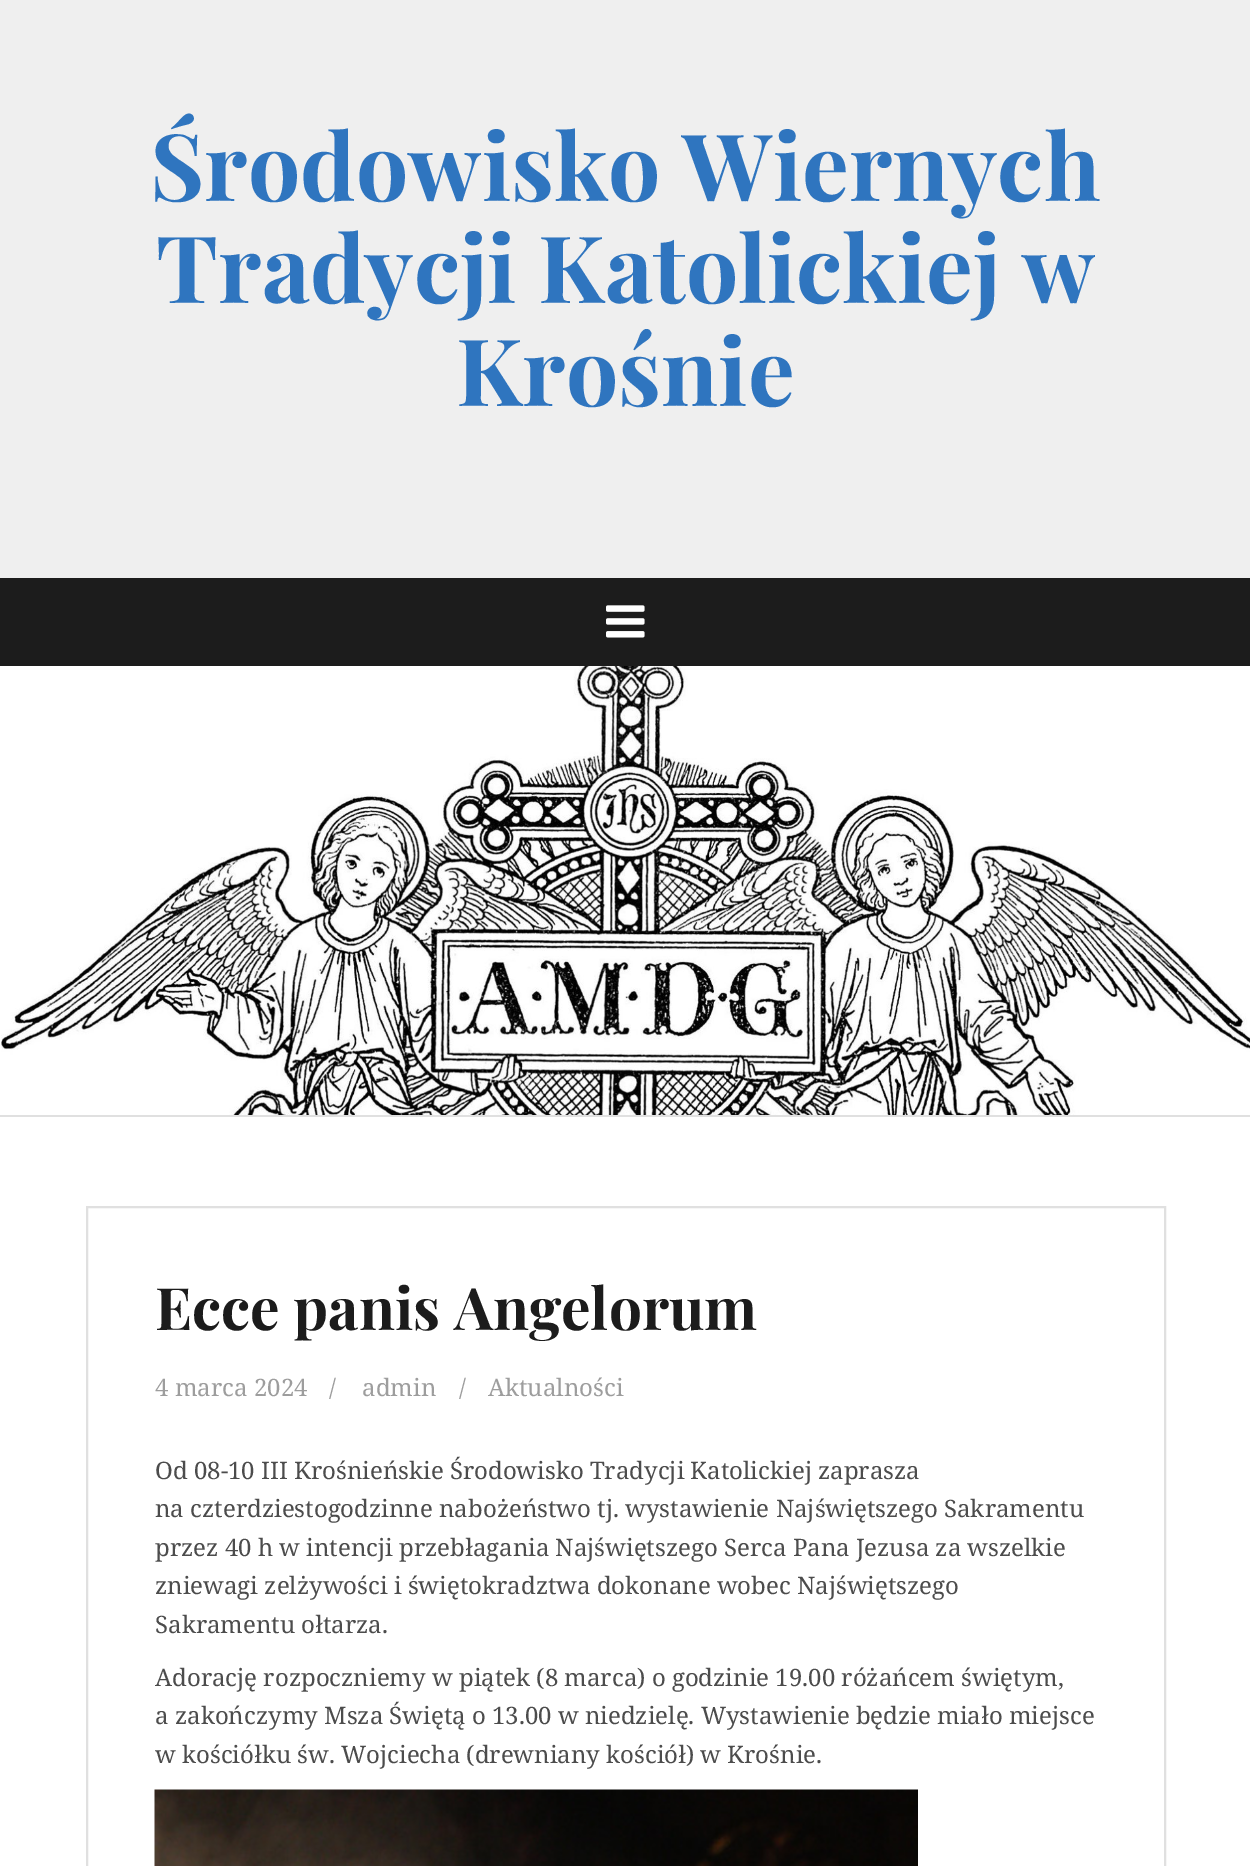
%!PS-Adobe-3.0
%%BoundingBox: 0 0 1250 1866
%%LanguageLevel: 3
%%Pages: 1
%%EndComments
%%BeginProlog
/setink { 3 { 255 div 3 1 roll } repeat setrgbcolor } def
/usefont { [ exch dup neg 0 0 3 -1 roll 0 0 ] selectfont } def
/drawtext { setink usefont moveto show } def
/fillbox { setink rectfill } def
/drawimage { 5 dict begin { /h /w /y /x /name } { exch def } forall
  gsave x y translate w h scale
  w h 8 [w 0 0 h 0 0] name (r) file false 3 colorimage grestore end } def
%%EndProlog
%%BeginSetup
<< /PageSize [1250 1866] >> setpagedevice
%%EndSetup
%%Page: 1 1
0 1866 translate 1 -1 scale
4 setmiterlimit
0 0 1250 1866 255 255 255 fillbox
0 0 1250 578 239 239 239 fillbox
(Środowisko Wiernych) 150 201 /PlayfairDisplay-Bold 93 47 117 191 drawtext
(Tradycji Katolickiej w) 156 303 /PlayfairDisplay-Bold 93 47 117 191 drawtext
(Krośnie) 456 406 /PlayfairDisplay-Bold 93 47 117 191 drawtext
0 578 1250 88 28 28 28 fillbox
(assets/img1.rgb) 606 605 39 33 drawimage
(assets/img2.rgb) 1 666 1249 449 drawimage
0 1115 1250 2 224 224 224 fillbox
2 setlinewidth
87 1207 1078 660 rectstroke
(Ecce panis Angelorum) 155 1330 /PlayfairDisplay-Bold 58.5 28 28 28 drawtext
(4 marca 2024) 155 1396 /NotoSerif-Regular 24 157 157 157 drawtext
(/) 329 1396 /NotoSerif-Regular 24 157 157 157 drawtext
(admin) 362 1396 /NotoSerif-Regular 24 157 157 157 drawtext
(/) 459 1396 /NotoSerif-Regular 24 157 157 157 drawtext
(Aktualności) 488 1396 /NotoSerif-Regular 24 157 157 157 drawtext
(Od 08-10 III Krośnieńskie Środowisko Tradycji Katolickiej zaprasza) 155 1479 /NotoSerif-Regular 24 76 76 76 drawtext
(na czterdziestogodzinne nabożeństwo tj. wystawienie Najświętszego Sakramentu) 155 1517 /NotoSerif-Regular 24 76 76 76 drawtext
(przez 40 h w intencji przebłagania Najświętszego Serca Pana Jezusa za wszelkie) 155 1556 /NotoSerif-Regular 24 76 76 76 drawtext
(zniewagi zelżywości i świętokradztwa dokonane wobec Najświętszego) 155 1594 /NotoSerif-Regular 24 76 76 76 drawtext
(Sakramentu ołtarza.) 155 1633 /NotoSerif-Regular 24 76 76 76 drawtext
(Adorację rozpoczniemy w piątek \(8 marca\) o godzinie 19.00 różańcem świętym,) 155 1686 /NotoSerif-Regular 24 76 76 76 drawtext
(a zakończymy Msza Świętą o 13.00 w niedzielę. Wystawienie będzie miało miejsce) 155 1724 /NotoSerif-Regular 24 76 76 76 drawtext
(w kościółku św. Wojciecha \(drewniany kościół\) w Krośnie.) 155 1763 /NotoSerif-Regular 24 76 76 76 drawtext
(assets/img3.rgb) 154 1789 764 77 drawimage
showpage
%%EOF
